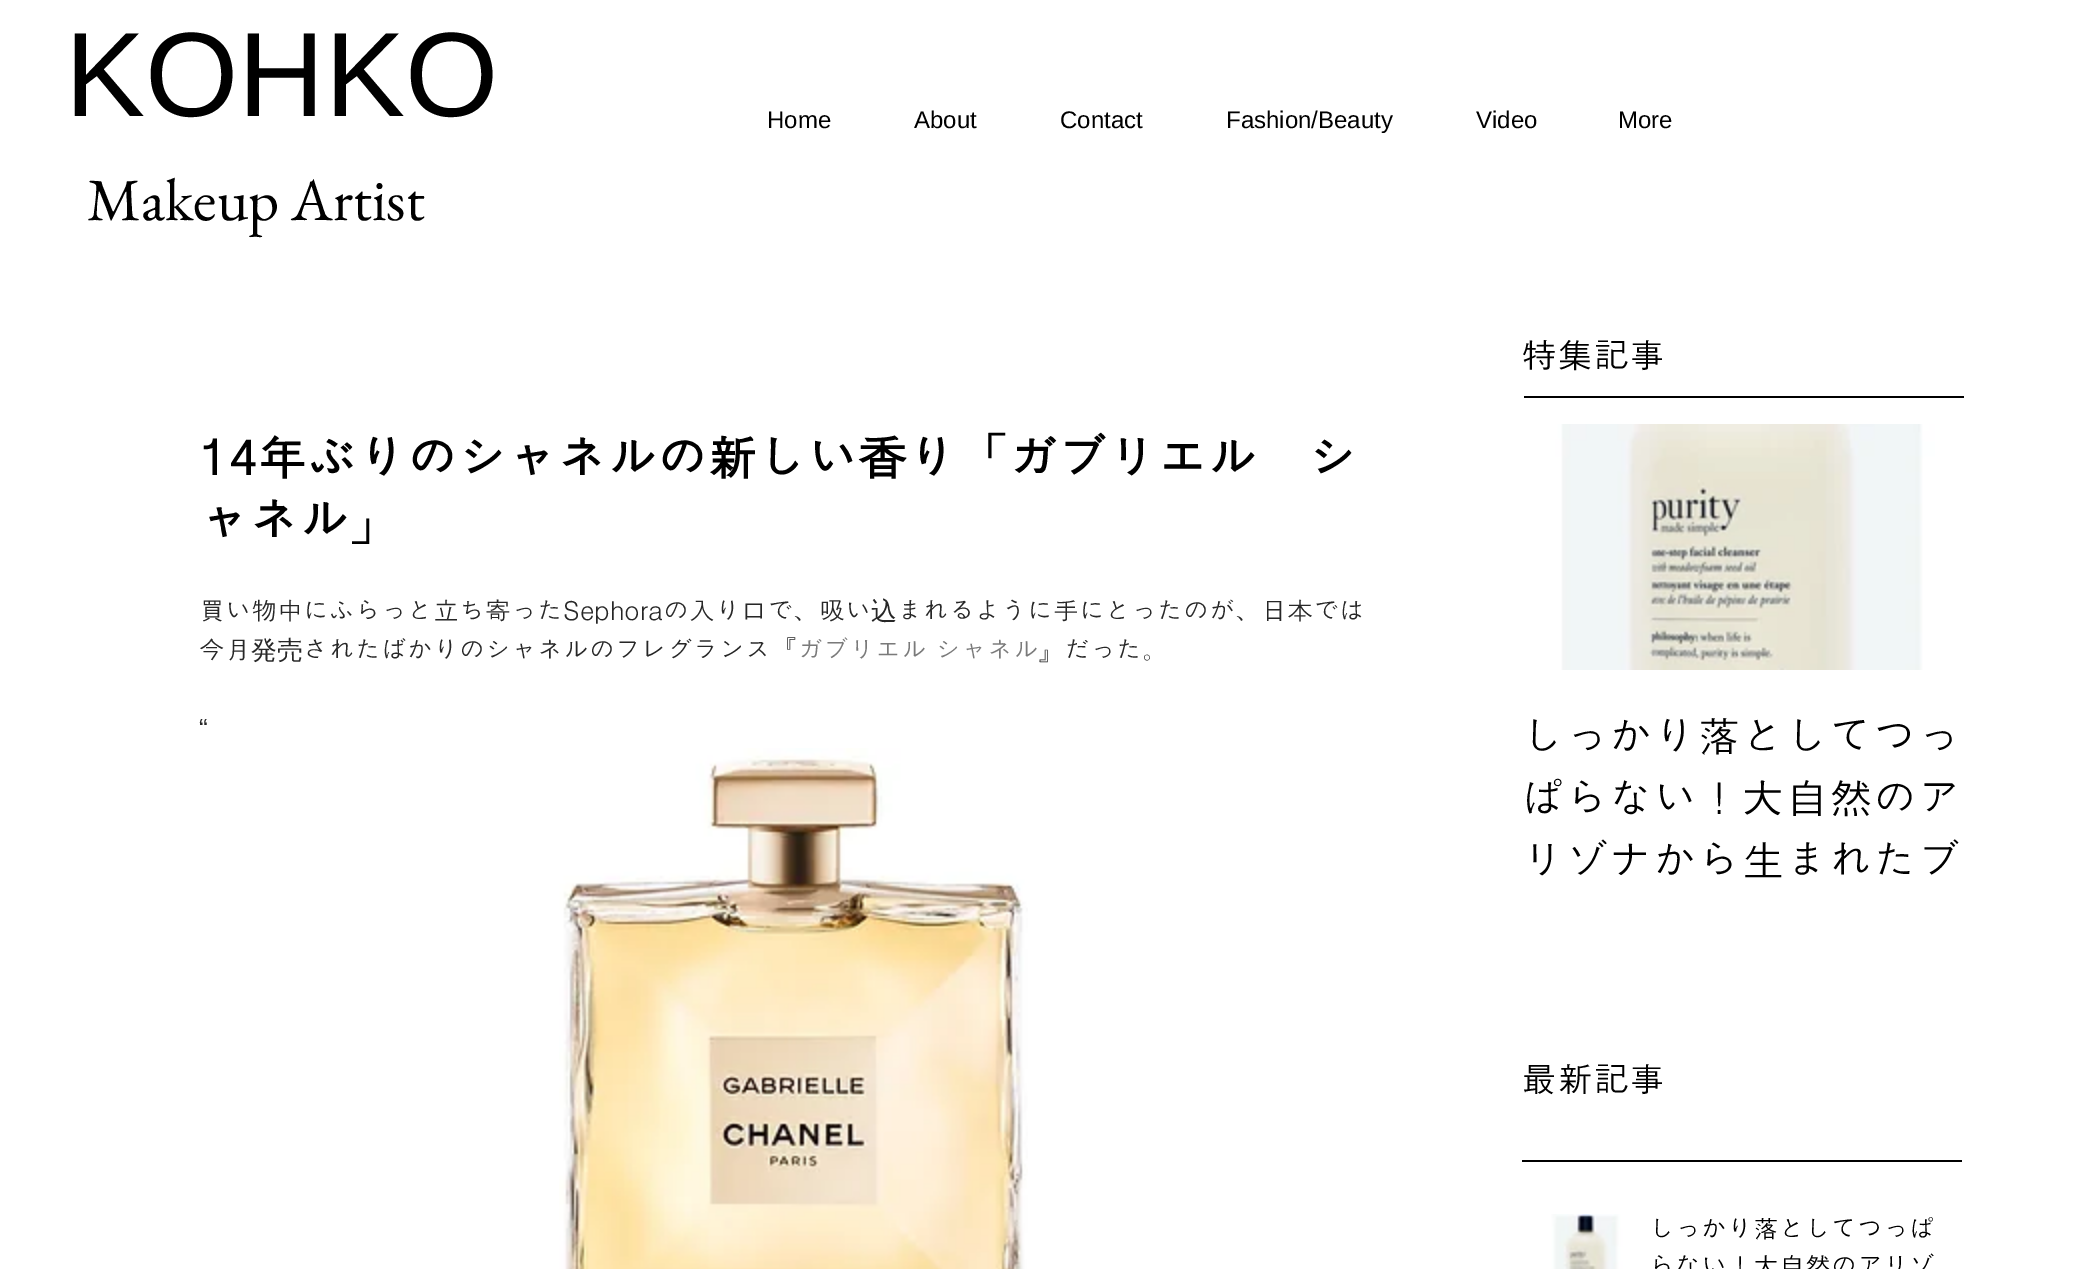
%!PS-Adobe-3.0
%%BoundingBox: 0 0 2085 1269
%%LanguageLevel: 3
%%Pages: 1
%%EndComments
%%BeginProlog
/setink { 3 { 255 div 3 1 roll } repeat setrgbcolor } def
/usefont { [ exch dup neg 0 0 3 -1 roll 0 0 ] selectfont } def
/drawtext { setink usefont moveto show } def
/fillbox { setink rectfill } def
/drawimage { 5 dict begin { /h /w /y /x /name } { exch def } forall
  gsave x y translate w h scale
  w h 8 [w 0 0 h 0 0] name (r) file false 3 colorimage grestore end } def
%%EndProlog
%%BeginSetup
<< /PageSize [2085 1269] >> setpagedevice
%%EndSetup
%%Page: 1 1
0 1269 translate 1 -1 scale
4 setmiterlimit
0 0 2085 1269 255 255 255 fillbox
(KOHKO) 65 116 /LiberationSans-Regular 120 0 0 0 drawtext
(Home) 767 128 /LiberationSans-Regular 24 0 0 0 drawtext
(About) 914 128 /LiberationSans-Regular 24 0 0 0 drawtext
(Contact) 1060 128 /LiberationSans-Regular 24 0 0 0 drawtext
(Fashion/Beauty) 1226 128 /LiberationSans-Regular 24 0 0 0 drawtext
(Video) 1476 128 /LiberationSans-Regular 24 0 0 0 drawtext
(More) 1618 128 /LiberationSans-Regular 24 0 0 0 drawtext
(Makeup Artist) 87 220 /EBGaramond-Regular 60 0 0 0 drawtext
(特集記事) 1521 368 /Dotum-Regular 36 0 0 0 drawtext
1524 396 440 2 0 0 0 fillbox
(14年ぶりのシャネルの新しい香り「ガブリエル　シ) 199 476 /Dotum-Bold 50 0 0 0 drawtext
(ャネル」) 199 538 /Dotum-Bold 50 0 0 0 drawtext
(買い物中にふらっと立ち寄ったSephoraの入り口で、吸い) 199 620 /Dotum-Regular 26 39 39 39 drawtext
(込) 871 620 /WenQuanYiZenHei-Medium 26 39 39 39 drawtext
(まれるように手にとったのが、日本では) 897 620 /Dotum-Regular 26 39 39 39 drawtext
(今月) 199 659 /Dotum-Regular 26 39 39 39 drawtext
(発売) 251 659 /WenQuanYiZenHei-Medium 26 39 39 39 drawtext
(されたばかりのシャネルのフレグランス『) 303 659 /Dotum-Regular 26 39 39 39 drawtext
122 122 122 setink
797 659 moveto -1 0 32 (ガブリエル シャネル) widthshow
(』だった。) 1038 659 /Dotum-Regular 26 39 39 39 drawtext
(“) 199 737 /LiberationSans-Regular 26 39 39 39 drawtext
(assets/img1.rgb) 559 748 469 521 drawimage
(assets/img2.rgb) 1555 424 380 246 drawimage
(しっかり落としてつっ) 1521 752 /Dotum-Regular 44 0 0 0 drawtext
(ぱらない！大自然のア) 1521 814 /Dotum-Regular 44 0 0 0 drawtext
(リゾナから生まれたブ) 1521 876 /Dotum-Regular 44 0 0 0 drawtext
(最新記事) 1521 1092 /Dotum-Regular 36 0 0 0 drawtext
1522 1160 440 2 0 0 0 fillbox
(assets/img3.rgb) 1551 1214 72 55 drawimage
(しっかり落としてつっぱ) 1649 1238 /Dotum-Regular 26 0 0 0 drawtext
(らない！大自然のアリゾ) 1649 1275 /Dotum-Regular 26 0 0 0 drawtext
showpage
%%EOF
